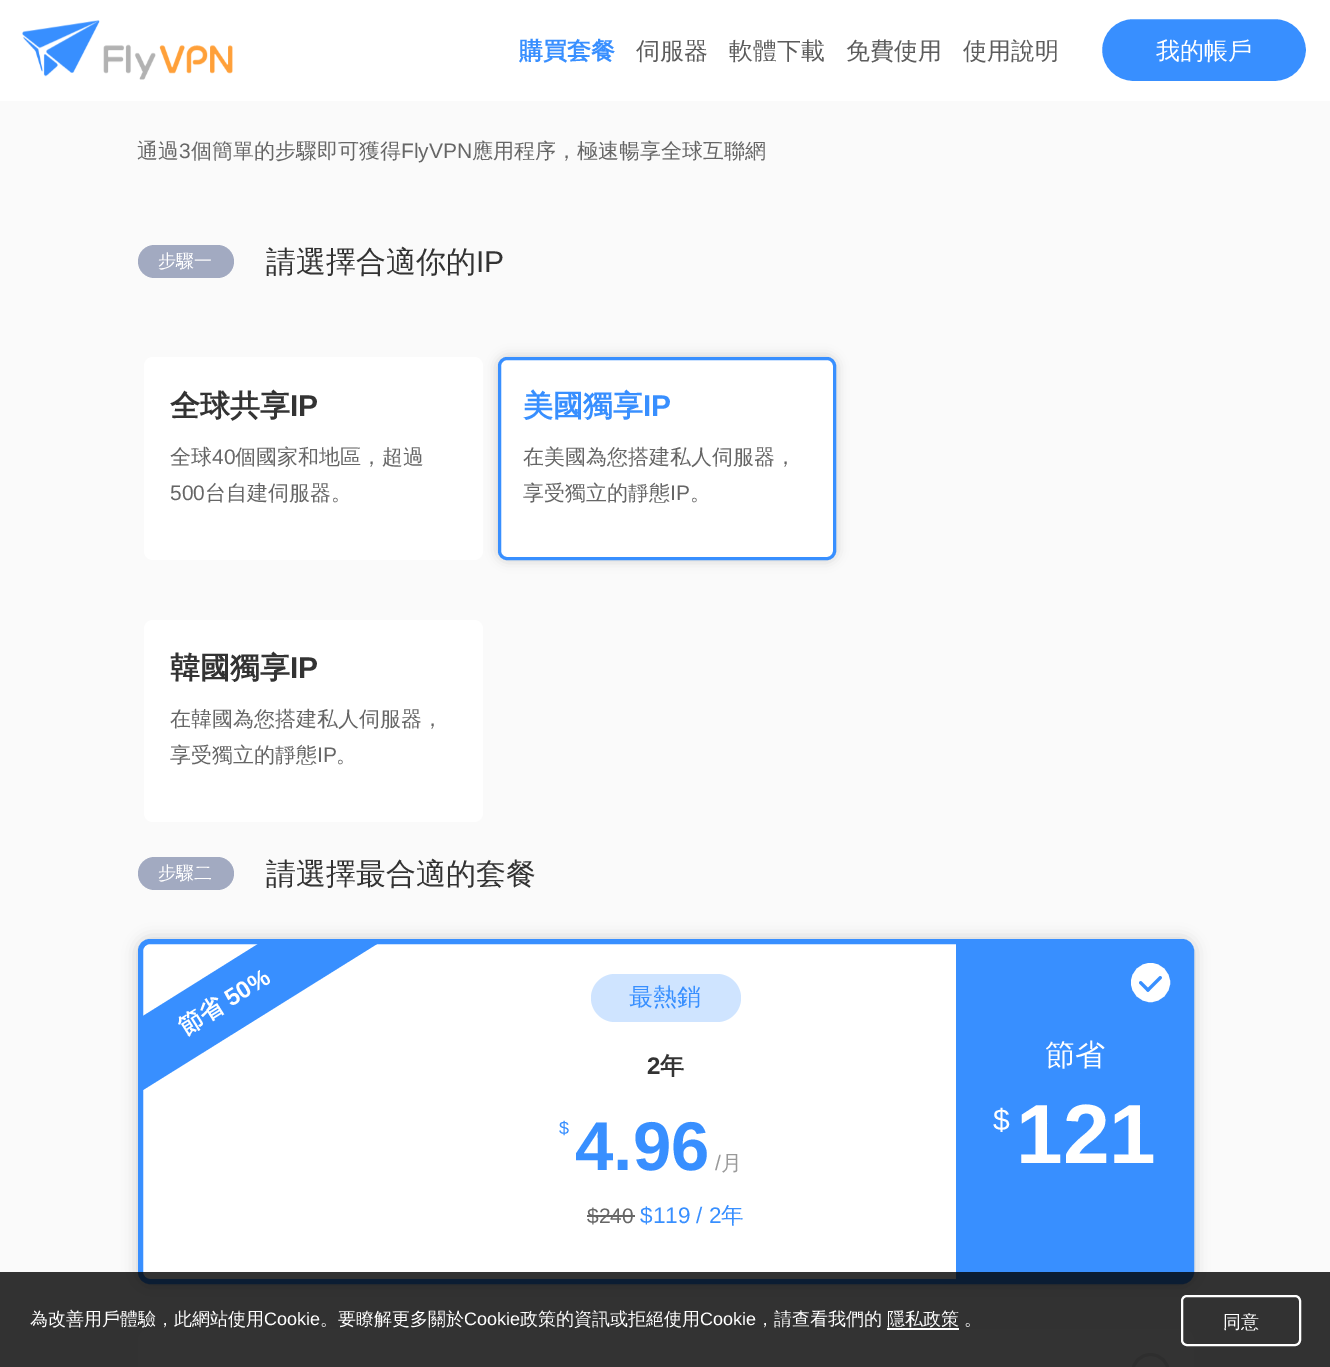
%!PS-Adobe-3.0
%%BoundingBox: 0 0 1330 1367
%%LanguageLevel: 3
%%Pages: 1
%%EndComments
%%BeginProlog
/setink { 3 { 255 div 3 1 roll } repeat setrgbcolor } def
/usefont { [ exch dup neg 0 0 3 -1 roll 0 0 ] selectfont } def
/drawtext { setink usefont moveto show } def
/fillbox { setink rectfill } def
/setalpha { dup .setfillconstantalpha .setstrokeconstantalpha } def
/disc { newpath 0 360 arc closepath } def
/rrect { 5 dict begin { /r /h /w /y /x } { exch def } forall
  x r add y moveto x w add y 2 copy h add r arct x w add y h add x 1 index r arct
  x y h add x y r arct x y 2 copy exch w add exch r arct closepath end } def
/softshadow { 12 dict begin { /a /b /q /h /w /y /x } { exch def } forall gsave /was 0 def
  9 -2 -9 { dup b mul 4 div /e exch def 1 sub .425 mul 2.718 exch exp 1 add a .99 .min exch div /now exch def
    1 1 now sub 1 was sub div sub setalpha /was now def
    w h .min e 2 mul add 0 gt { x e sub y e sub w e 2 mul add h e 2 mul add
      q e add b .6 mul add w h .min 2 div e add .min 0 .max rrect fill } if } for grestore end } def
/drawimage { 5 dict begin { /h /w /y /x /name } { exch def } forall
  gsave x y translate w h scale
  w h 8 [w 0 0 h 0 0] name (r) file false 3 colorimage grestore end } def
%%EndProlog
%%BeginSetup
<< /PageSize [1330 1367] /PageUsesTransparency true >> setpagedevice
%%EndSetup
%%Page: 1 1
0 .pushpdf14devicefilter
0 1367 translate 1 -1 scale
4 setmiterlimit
0 0 1330 1367 250 250 250 fillbox
0 0 1330 101 255 255 255 fillbox
(assets/img1.rgb) 22 20 211 60 drawimage
(購買套餐) 519 59 /WenQuanYiZenHei-Bold 24 56 143 255 drawtext
(伺服器) 636 59 /WenQuanYiZenHei-Medium 24 92 92 92 drawtext
(軟體下載) 729 59 /WenQuanYiZenHei-Medium 24 92 92 92 drawtext
(免費使用) 846 59 /WenQuanYiZenHei-Medium 24 92 92 92 drawtext
(使用說明) 963 59 /WenQuanYiZenHei-Medium 24 92 92 92 drawtext
56 143 255 setink
1101 18 206 64 32 rrect gsave fill grestore
255 255 255 setink
2 setlinewidth
stroke
(我的帳戶) 1156 59 /WenQuanYiZenHei-Medium 24 255 255 255 drawtext
(通過) 137 158 /WenQuanYiZenHei-Medium 21 102 102 102 drawtext
(3) 179 158 /LiberationSans-Regular 21 102 102 102 drawtext
(個簡單的步驟即可獲得) 191 158 /WenQuanYiZenHei-Medium 21 102 102 102 drawtext
(FlyVPN) 401 158 /LiberationSans-Regular 21 102 102 102 drawtext
(應用程序，極速暢享全球互聯網) 472 158 /WenQuanYiZenHei-Medium 21 102 102 102 drawtext
162 170 193 setink
138 245 96 33 16.5 rrect fill
(步驟一) 158 267 /WenQuanYiZenHei-Medium 18 255 255 255 drawtext
(請選擇合適你的) 266 272 /WenQuanYiZenHei-Medium 30 51 51 51 drawtext
(IP) 476 272 /LiberationSans-Regular 30 51 51 51 drawtext
255 255 255 setink
144 357 339 203 9 rrect fill
(全球共享) 170 416 /WenQuanYiZenHei-Bold 30 51 51 51 drawtext
(IP) 290 416 /LiberationSans-Bold 30 51 51 51 drawtext
(全球) 170 464 /WenQuanYiZenHei-Medium 21 102 102 102 drawtext
(40) 212 464 /LiberationSans-Regular 21 102 102 102 drawtext
(個國家和地區，超過) 235 464 /WenQuanYiZenHei-Medium 21 102 102 102 drawtext
(500) 170 500 /LiberationSans-Regular 21 102 102 102 drawtext
(台自建伺服器。) 205 500 /WenQuanYiZenHei-Medium 21 102 102 102 drawtext
204 204 204 setink
498 357 338 203 9 6 1 softshadow
255 255 255 setink
499.5 358.5 335 200 7.5 rrect gsave fill grestore
56 143 255 setink
3 setlinewidth
stroke
(美國獨享) 523 416 /WenQuanYiZenHei-Bold 30 56 143 255 drawtext
(IP) 643 416 /LiberationSans-Bold 30 56 143 255 drawtext
(在美國為您搭建私人伺服器，) 523 464 /WenQuanYiZenHei-Medium 21 102 102 102 drawtext
(享受獨立的靜態) 523 500 /WenQuanYiZenHei-Medium 21 102 102 102 drawtext
(IP) 670 500 /LiberationSans-Regular 21 102 102 102 drawtext
(。) 690 500 /WenQuanYiZenHei-Medium 21 102 102 102 drawtext
255 255 255 setink
144 620 339 202 9 rrect fill
(韓國獨享) 170 678 /WenQuanYiZenHei-Bold 30 51 51 51 drawtext
(IP) 290 678 /LiberationSans-Bold 30 51 51 51 drawtext
(在韓國為您搭建私人伺服器，) 170 726 /WenQuanYiZenHei-Medium 21 102 102 102 drawtext
(享受獨立的靜態) 170 762 /WenQuanYiZenHei-Medium 21 102 102 102 drawtext
(IP) 317 762 /LiberationSans-Regular 21 102 102 102 drawtext
(。) 336 762 /WenQuanYiZenHei-Medium 21 102 102 102 drawtext
162 170 193 setink
138 857 96 33 16.5 rrect fill
(步驟二) 158 879 /WenQuanYiZenHei-Medium 18 255 255 255 drawtext
(請選擇最合適的套餐) 266 884 /WenQuanYiZenHei-Medium 30 51 51 51 drawtext
204 204 204 setink
138 939 1056 345 12 7.5 1 softshadow
255 255 255 setink
140.5 941.5 1051 340 9.5 rrect gsave fill grestore
56 143 255 setink
5 setlinewidth
stroke
377 944 moveto 143 1090 lineto 143 1016 lineto 258 944 lineto closepath fill
/LiberationSans-Bold 24 usefont
255 255 255 setink
gsave 231 1007 translate -32 rotate 0 0 moveto (50%) show grestore
/WenQuanYiZenHei-Bold 24 usefont
gsave 185 1036 translate -32 rotate 0 0 moveto (節省) show grestore
207 228 255 setink
591 974 150 48 24 rrect fill
(最熱銷) 629 1005 /WenQuanYiZenHei-Medium 24 56 143 255 drawtext
gsave
143 944 1047 336 8 rrect clip newpath
956 944 moveto 1184 944 lineto 1190.5 944 1196 949.5 1196 956 curveto 1196 1277 lineto 1196 1283.5 1190.5 1289 1184 1289 curveto 956 1289 lineto closepath fill
grestore
255 255 255 setink
1150.5 982.5 18 disc gsave fill grestore
3 setlinewidth
stroke
(assets/img2.rgb) 1139 976 23 16 drawimage
(2) 647 1074 /LiberationSans-Bold 24 51 51 51 drawtext
(年) 660 1074 /WenQuanYiZenHei-Bold 24 51 51 51 drawtext
(節省) 1045 1065 /WenQuanYiZenHei-Medium 30 255 255 255 drawtext
($) 993 1130 /LiberationSans-Regular 30 255 255 255 drawtext
(121) 1016 1163 /LiberationSans-Bold 84 255 255 255 drawtext
($) 559 1134 /LiberationSans-Regular 18 56 143 255 drawtext
(4.96) 575 1170 /LiberationSans-Bold 69 56 143 255 drawtext
(/) 715 1170 /LiberationSans-Regular 21 153 153 153 drawtext
(月) 721 1170 /WenQuanYiZenHei-Medium 21 153 153 153 drawtext
($240) 587 1223 /LiberationSans-Regular 21 102 102 102 drawtext
587 1215 48 2 102 102 102 fillbox
($119 / 2) 640 1223 /LiberationSans-Regular 22.5 56 143 255 drawtext
(年) 721 1223 /WenQuanYiZenHei-Medium 22.5 56 143 255 drawtext
255 255 255 setink
138 1329 1056 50 12 rrect fill
230 230 230 setink
1132.5 1354.5 36 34 18 rrect stroke
0.8 setalpha
0 1272 1330 95 0 0 0 fillbox
1 setalpha
(為改善用戶體驗，此網站使用) 30 1325 /WenQuanYiZenHei-Medium 18 255 255 255 drawtext
(Cookie) 264 1325 /LiberationSans-Regular 18 255 255 255 drawtext
(。要瞭解更多關於) 320 1325 /WenQuanYiZenHei-Medium 18 255 255 255 drawtext
(Cookie) 464 1325 /LiberationSans-Regular 18 255 255 255 drawtext
(政策的資訊或拒絕使用) 520 1325 /WenQuanYiZenHei-Medium 18 255 255 255 drawtext
(Cookie) 700 1325 /LiberationSans-Regular 18 255 255 255 drawtext
(，請查看我們的) 756 1325 /WenQuanYiZenHei-Medium 18 255 255 255 drawtext
(隱私政策) 887 1325 /WenQuanYiZenHei-Medium 18 255 255 255 drawtext
887 1328 72 2 255 255 255 fillbox
(。) 964 1325 /WenQuanYiZenHei-Medium 18 255 255 255 drawtext
2 setlinewidth
1182 1296 118 49 5 rrect stroke
(同意) 1223 1328 /WenQuanYiZenHei-Medium 18 255 255 255 drawtext
.poppdf14devicefilter showpage
%%EOF
